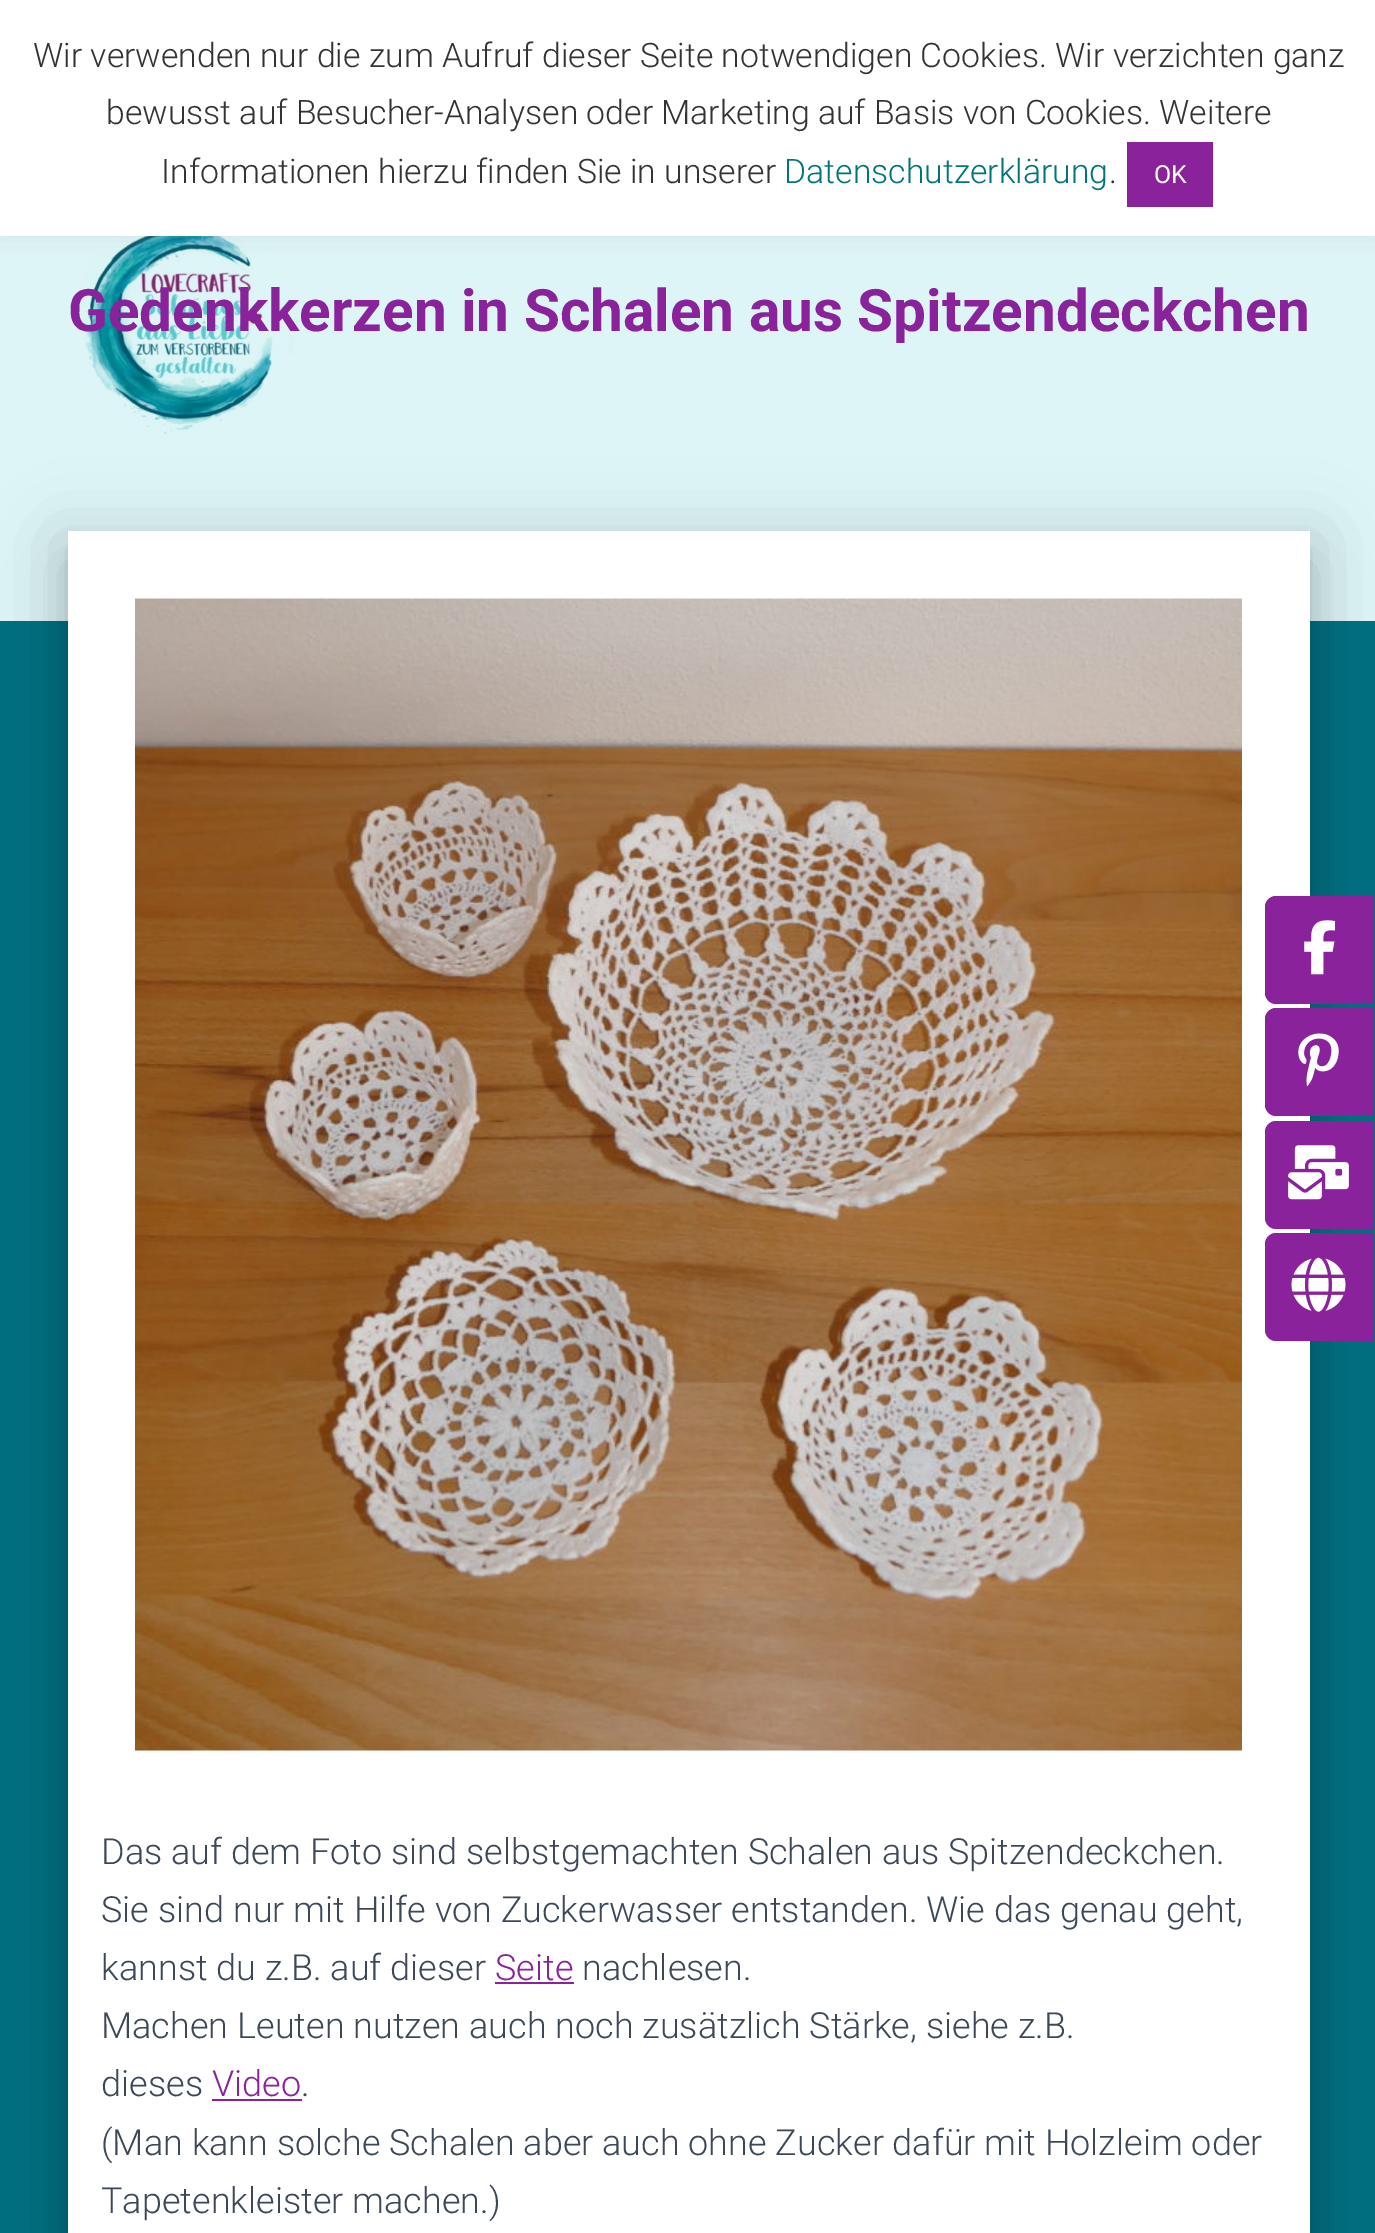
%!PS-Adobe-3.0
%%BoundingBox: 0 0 1375 2233
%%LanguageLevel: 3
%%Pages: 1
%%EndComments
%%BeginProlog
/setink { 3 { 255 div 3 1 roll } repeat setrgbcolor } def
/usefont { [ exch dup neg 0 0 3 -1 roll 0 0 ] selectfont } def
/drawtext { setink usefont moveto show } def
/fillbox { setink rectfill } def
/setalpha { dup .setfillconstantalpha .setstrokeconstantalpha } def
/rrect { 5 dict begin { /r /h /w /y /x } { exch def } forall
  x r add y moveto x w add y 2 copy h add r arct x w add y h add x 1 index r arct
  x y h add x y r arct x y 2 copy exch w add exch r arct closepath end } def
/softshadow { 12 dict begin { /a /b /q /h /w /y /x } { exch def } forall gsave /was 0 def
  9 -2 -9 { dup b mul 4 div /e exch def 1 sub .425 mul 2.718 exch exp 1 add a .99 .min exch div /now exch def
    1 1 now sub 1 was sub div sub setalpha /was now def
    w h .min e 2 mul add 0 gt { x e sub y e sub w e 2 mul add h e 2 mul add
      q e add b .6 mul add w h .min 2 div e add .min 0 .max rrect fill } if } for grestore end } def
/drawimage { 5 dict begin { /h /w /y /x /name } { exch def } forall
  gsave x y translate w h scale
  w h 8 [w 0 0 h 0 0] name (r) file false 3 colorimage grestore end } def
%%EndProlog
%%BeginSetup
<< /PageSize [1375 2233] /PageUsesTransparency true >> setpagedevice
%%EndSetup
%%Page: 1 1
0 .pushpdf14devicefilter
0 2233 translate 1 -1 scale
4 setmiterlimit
0 0 1375 2233 1 110 130 fillbox
(assets/img1.rgb) 0 236 1375 385 drawimage
172 171 171 setink
0 -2 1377 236 0 11 0.3 softshadow
0 0 1375 236 255 255 255 fillbox
(Wir verwenden nur die zum Aufruf dieser Seite notwendigen Cookies. Wir verzichten ganz) 33 67 /Roboto-Light 33.75 51 51 51 drawtext
(bewusst auf Besucher-Analysen oder Marketing auf Basis von Cookies. Weitere) 106 124 /Roboto-Light 33.75 51 51 51 drawtext
(Informationen hierzu finden Sie in unserer) 161 183 /Roboto-Light 33.75 51 51 51 drawtext
(Datenschutzerklärung) 784 183 /Roboto-Light 33.75 0 117 119 drawtext
(.) 1109 183 /Roboto-Light 33.75 51 51 51 drawtext
1127 142 86 65 137 34 155 fillbox
(OK) 1154 183 /Roboto-Regular 25 255 255 255 drawtext
(Gedenkkerzen in Schalen aus Spitzendeckchen) 68 331 /Roboto-Bold 58.5 137 34 155 drawtext
0 0 0 setink
79 560 1219 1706 0 11 0.2 softshadow
56 533 1265 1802 0 34 0.12 softshadow
63 563 1251 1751 0 27 0.14 softshadow
68 531 1242 1702 255 255 255 fillbox
(assets/img2.rgb) 135 598 1107 1153 drawimage
(Das auf dem Foto sind selbstgemachten Schalen aus Spitzendeckchen.) 101 1864 /Roboto-Light 36 60 72 88 drawtext
(Sie sind nur mit Hilfe von Zuckerwasser entstanden. Wie das genau geht,) 101 1922 /Roboto-Light 36 60 72 88 drawtext
(kannst du z.B. auf dieser) 101 1980 /Roboto-Light 36 60 72 88 drawtext
(Seite) 495 1980 /Roboto-Light 36 137 34 155 drawtext
495 1982 79 2 137 34 155 fillbox
(nachlesen.) 582 1980 /Roboto-Light 36 60 72 88 drawtext
(Machen Leuten nutzen auch noch zusätzlich Stärke, siehe z.B.) 101 2038 /Roboto-Light 36 60 72 88 drawtext
(dieses) 101 2096 /Roboto-Light 36 60 72 88 drawtext
(Video) 212 2096 /Roboto-Light 36 137 34 155 drawtext
212 2099 90 2 137 34 155 fillbox
(.) 301 2096 /Roboto-Light 36 60 72 88 drawtext
(\(Man kann solche Schalen aber auch ohne Zucker dafür mit Holzleim oder) 101 2155 /Roboto-Light 36 60 72 88 drawtext
(Tapetenkleister machen.\)) 101 2213 /Roboto-Light 36 60 72 88 drawtext
137 34 155 setink
1276 896 moveto 1373 896 lineto 1373 1004 lineto 1276 1004 lineto 1270 1004 1265 999 1265 993 curveto 1265 907 lineto 1265 901 1270 896 1276 896 curveto closepath fill
(assets/img3.rgb) 1304 920 32 55 drawimage
1276 1008 moveto 1373 1008 lineto 1373 1116 lineto 1276 1116 lineto 1270 1116 1265 1111 1265 1105 curveto 1265 1019 lineto 1265 1013 1270 1008 1276 1008 curveto closepath fill
(assets/img4.rgb) 1298 1033 41 53 drawimage
1276 1121 moveto 1373 1121 lineto 1373 1229 lineto 1276 1229 lineto 1270 1229 1265 1224 1265 1218 curveto 1265 1132 lineto 1265 1126 1270 1121 1276 1121 curveto closepath fill
(assets/img5.rgb) 1288 1145 61 55 drawimage
1276 1233 moveto 1373 1233 lineto 1373 1341 lineto 1276 1341 lineto 1270 1341 1265 1336 1265 1330 curveto 1265 1244 lineto 1265 1238 1270 1233 1276 1233 curveto closepath fill
(assets/img6.rgb) 1291 1257 55 55 drawimage
.poppdf14devicefilter showpage
%%EOF
